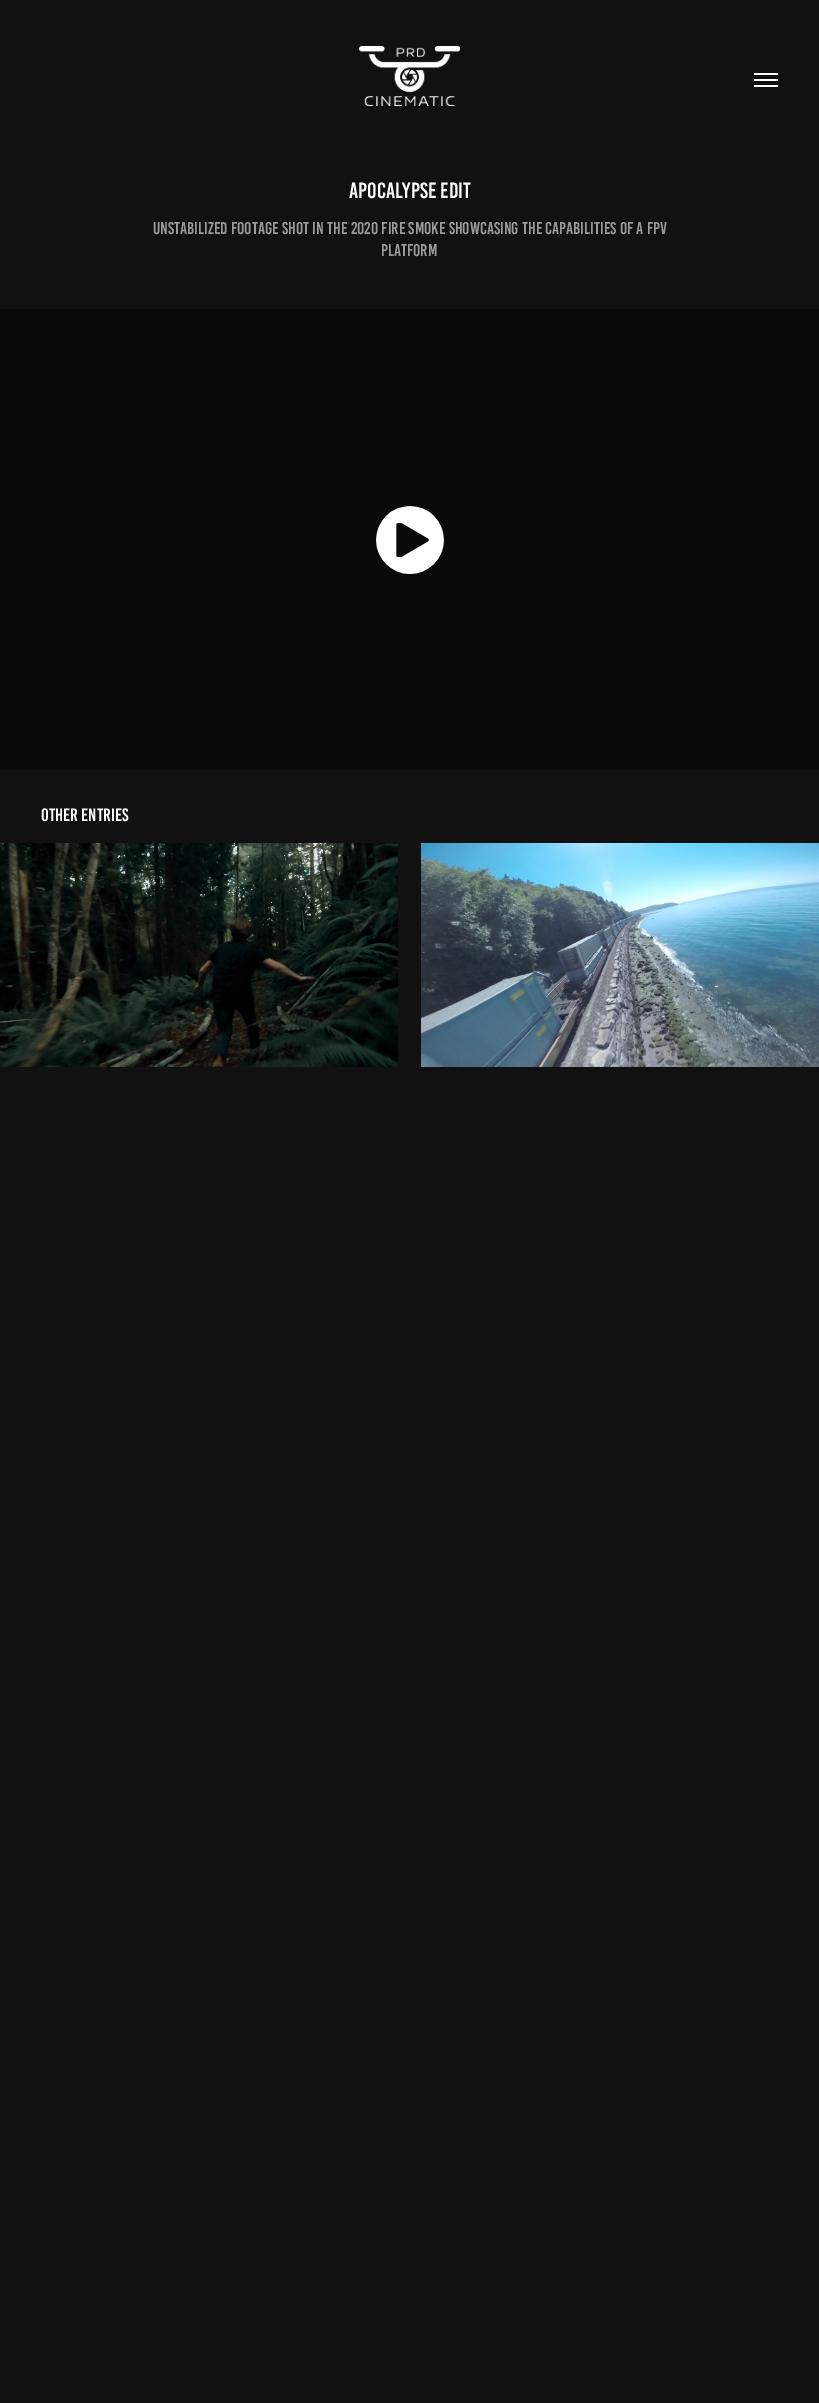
%!PS-Adobe-3.0
%%BoundingBox: 0 0 819 2403
%%LanguageLevel: 3
%%Pages: 1
%%EndComments
%%BeginProlog
/setink { 3 { 255 div 3 1 roll } repeat setrgbcolor } def
/usefont { [ exch dup neg 0 0 3 -1 roll 0 0 ] selectfont } def
/drawtext { setink usefont moveto show } def
/fillbox { setink rectfill } def
/drawimage { 5 dict begin { /h /w /y /x /name } { exch def } forall
  gsave x y translate w h scale
  w h 8 [w 0 0 h 0 0] name (r) file false 3 colorimage grestore end } def
%%EndProlog
%%BeginSetup
<< /PageSize [819 2403] >> setpagedevice
%%EndSetup
%%Page: 1 1
0 2403 translate 1 -1 scale
4 setmiterlimit
0 0 819 2403 17 17 17 fillbox
(assets/img1.rgb) 359 46 101 60 drawimage
754 73 24 2 255 255 255 fillbox
754 79 24 2 255 255 255 fillbox
754 85 24 2 255 255 255 fillbox
(Apocalypse Edit) 349 198 /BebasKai-Regular 22 255 255 255 drawtext
(Unstabilized Footage Shot in the 2020 Fire Smoke Showcasing the capabilities of a FPV) 153 234 /BebasKai-Regular 17 153 153 153 drawtext
(Platform) 381 256 /BebasKai-Regular 17 153 153 153 drawtext
(assets/img2.rgb) 0 309 819 461 drawimage
(Other Entries) 41 821 /BebasKai-Regular 18 255 255 255 drawtext
(assets/img3.rgb) 0 843 398 224 drawimage
(assets/img4.rgb) 421 843 398 224 drawimage
showpage
%%EOF
